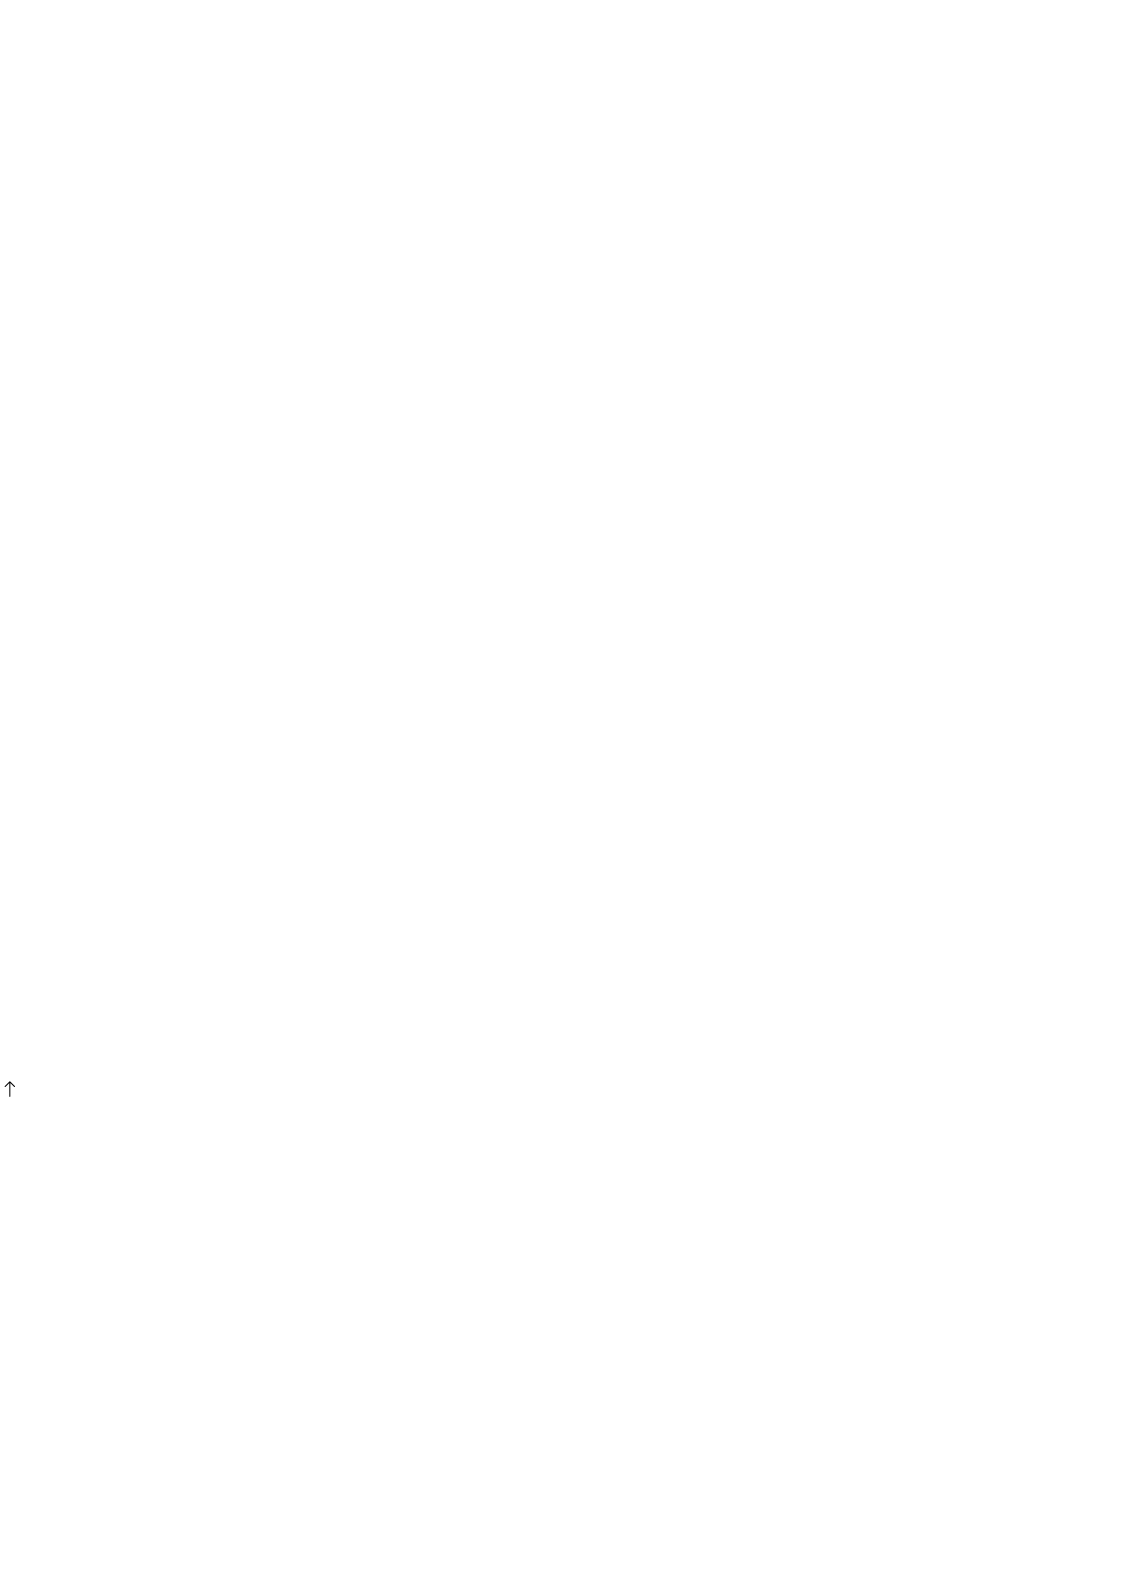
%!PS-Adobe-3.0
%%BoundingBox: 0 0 1139 1583
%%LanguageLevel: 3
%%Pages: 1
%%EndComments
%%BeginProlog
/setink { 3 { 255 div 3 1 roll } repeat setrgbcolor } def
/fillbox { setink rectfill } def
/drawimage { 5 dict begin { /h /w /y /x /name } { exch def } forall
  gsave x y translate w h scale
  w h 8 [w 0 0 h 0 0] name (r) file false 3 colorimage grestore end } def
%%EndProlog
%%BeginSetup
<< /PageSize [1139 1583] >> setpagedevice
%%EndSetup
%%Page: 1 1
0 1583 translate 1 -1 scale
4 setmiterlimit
0 0 1139 1583 255 255 255 fillbox
(assets/img1.rgb) 4 1081 11 16 drawimage
showpage
%%EOF
